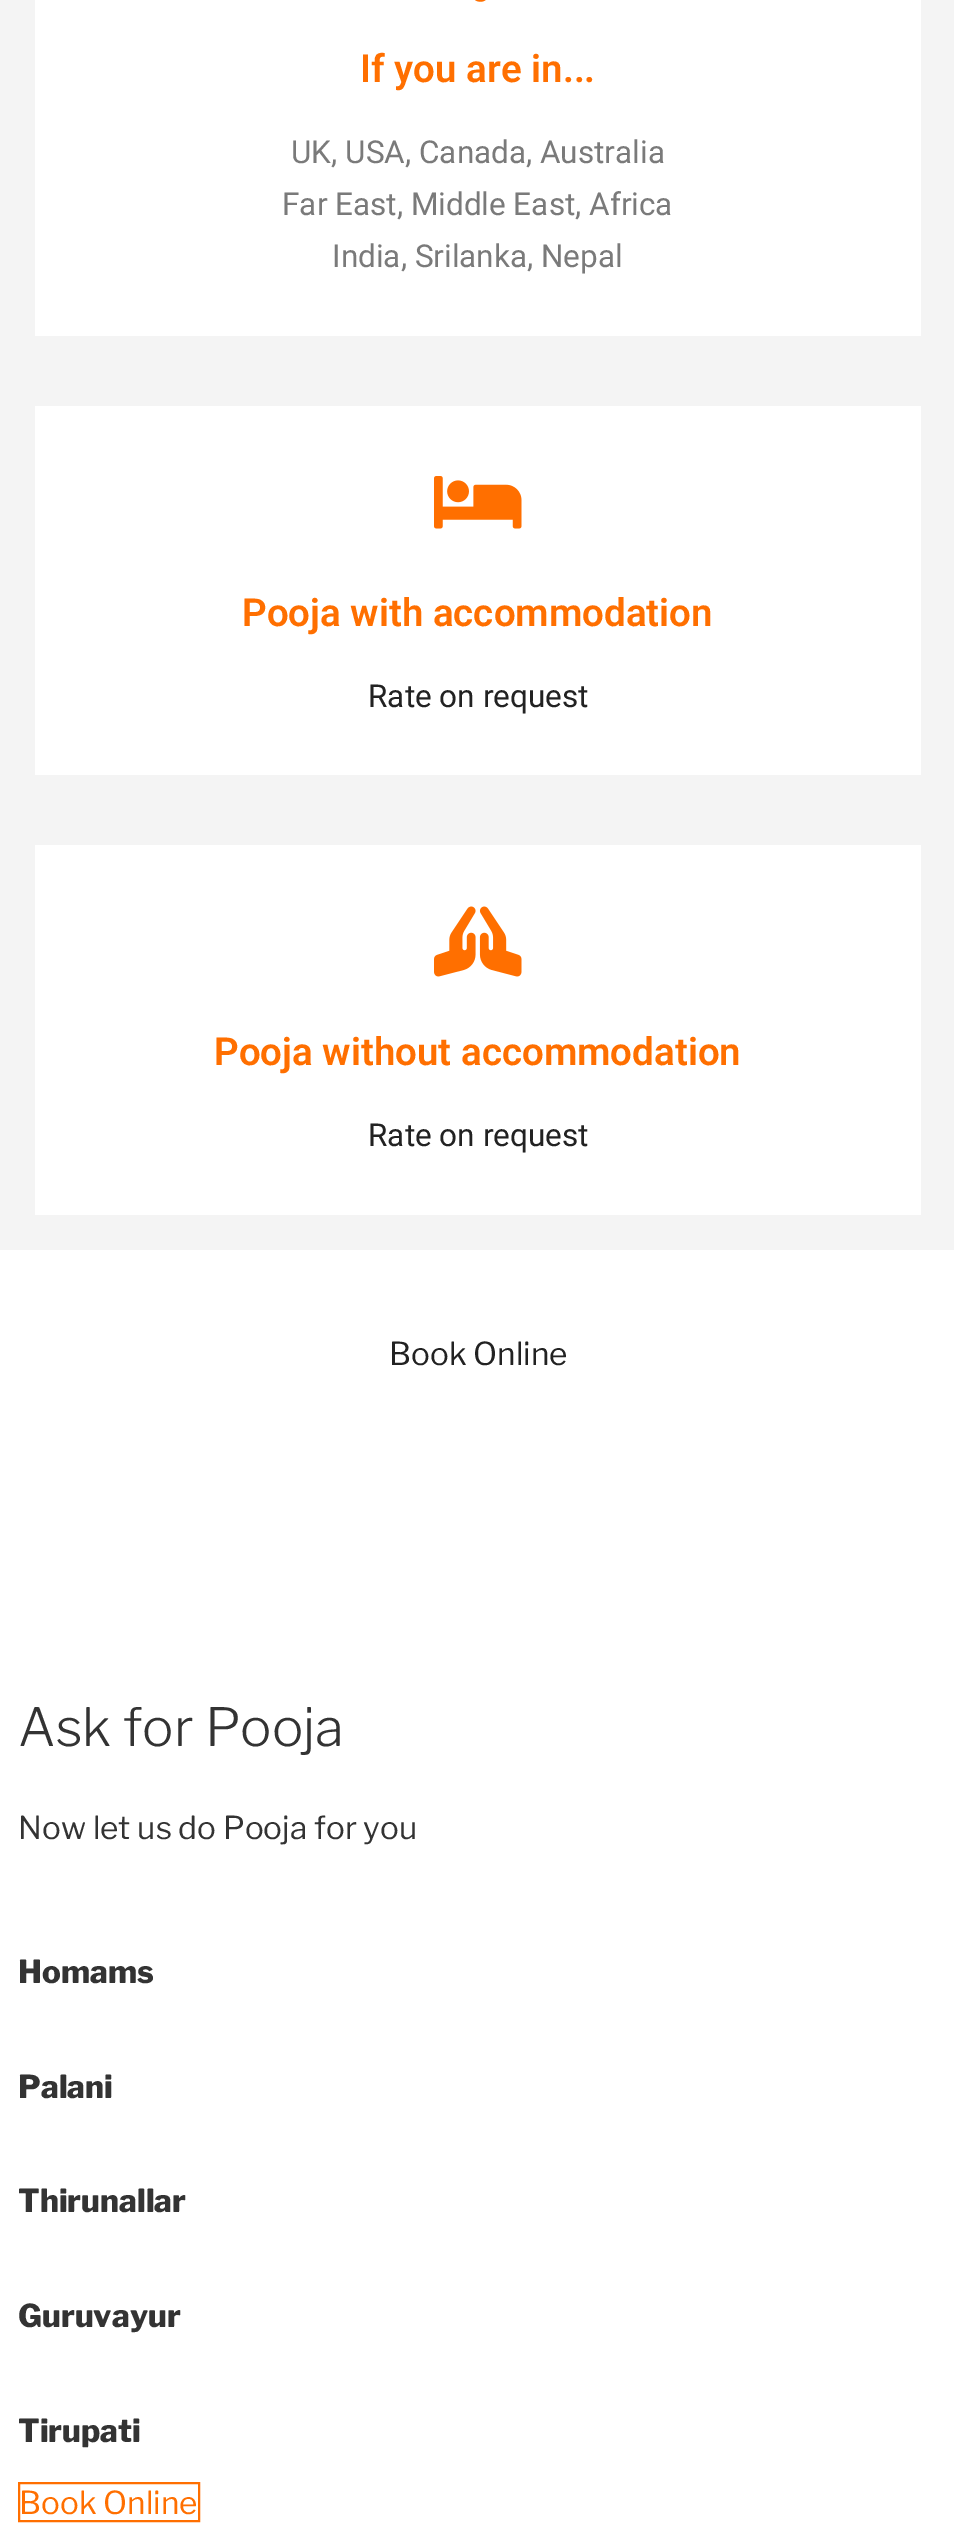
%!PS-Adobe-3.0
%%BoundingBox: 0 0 954 2544
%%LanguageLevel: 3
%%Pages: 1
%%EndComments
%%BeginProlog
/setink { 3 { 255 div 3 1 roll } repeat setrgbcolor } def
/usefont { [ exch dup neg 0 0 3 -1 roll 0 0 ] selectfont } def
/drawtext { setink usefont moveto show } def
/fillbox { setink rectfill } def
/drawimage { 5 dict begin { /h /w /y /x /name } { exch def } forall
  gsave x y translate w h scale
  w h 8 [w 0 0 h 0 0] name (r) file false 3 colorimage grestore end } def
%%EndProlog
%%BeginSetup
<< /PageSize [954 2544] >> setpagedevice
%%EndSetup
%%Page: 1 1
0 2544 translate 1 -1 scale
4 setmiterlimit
0 0 954 2544 255 255 255 fillbox
0 0 954 1250 244 244 244 fillbox
35 0 886 336 255 255 255 fillbox
255 111 0 setink
510 -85 moveto 439 -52 lineto 431 -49 433 -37 442 -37 curveto 472 -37 lineto 472 -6 lineto 472 2 484 5 488 -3 curveto 521 -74 lineto 524 -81 517 -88 510 -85 curveto closepath fill
(If you are in...) 360 82 /Roboto-SemiBold 38.5 255 111 0 drawtext
(UK, USA, Canada, Australia) 291 163 /Roboto-Regular 31.5 122 122 122 drawtext
(Far East, Middle East, Africa) 282 215 /Roboto-Regular 31.5 122 122 122 drawtext
(India, Srilanka, Nepal) 332 267 /Roboto-Regular 31.5 122 122 122 drawtext
35 406 886 369 255 255 255 fillbox
(assets/img1.rgb) 434 476 88 53 drawimage
(Pooja with accommodation) 242 626 /Roboto-SemiBold 38.5 255 111 0 drawtext
(Rate on request) 368 707 /Roboto-Regular 31.5 34 34 34 drawtext
35 845 886 370 255 255 255 fillbox
(assets/img2.rgb) 434 906 88 71 drawimage
(Pooja without accommodation) 214 1065 /Roboto-SemiBold 38.5 255 111 0 drawtext
(Rate on request) 368 1146 /Roboto-Regular 31.5 34 34 34 drawtext
(Book Online) 389 1365 /LibreFranklin-Regular 31.5 34 34 34 drawtext
(Ask for Pooja) 18 1746 /LibreFranklin-Light 52.5 51 51 51 drawtext
(Now let us do Pooja for you) 18 1839 /LibreFranklin-Regular 31.5 51 51 51 drawtext
(Homams) 18 1983 /LibreFranklin-ExtraBold 31.5 51 51 51 drawtext
(Palani) 18 2098 /LibreFranklin-ExtraBold 31.5 51 51 51 drawtext
(Thirunallar) 18 2212 /LibreFranklin-ExtraBold 31.5 51 51 51 drawtext
(Guruvayur) 18 2327 /LibreFranklin-ExtraBold 31.5 51 51 51 drawtext
(Tirupati) 18 2442 /LibreFranklin-ExtraBold 31.5 51 51 51 drawtext
255 111 0 setink
2 setlinewidth
19 2483 180 38 rectstroke
(Book Online) 19 2514 /LibreFranklin-Regular 31.5 255 111 0 drawtext
showpage
%%EOF
